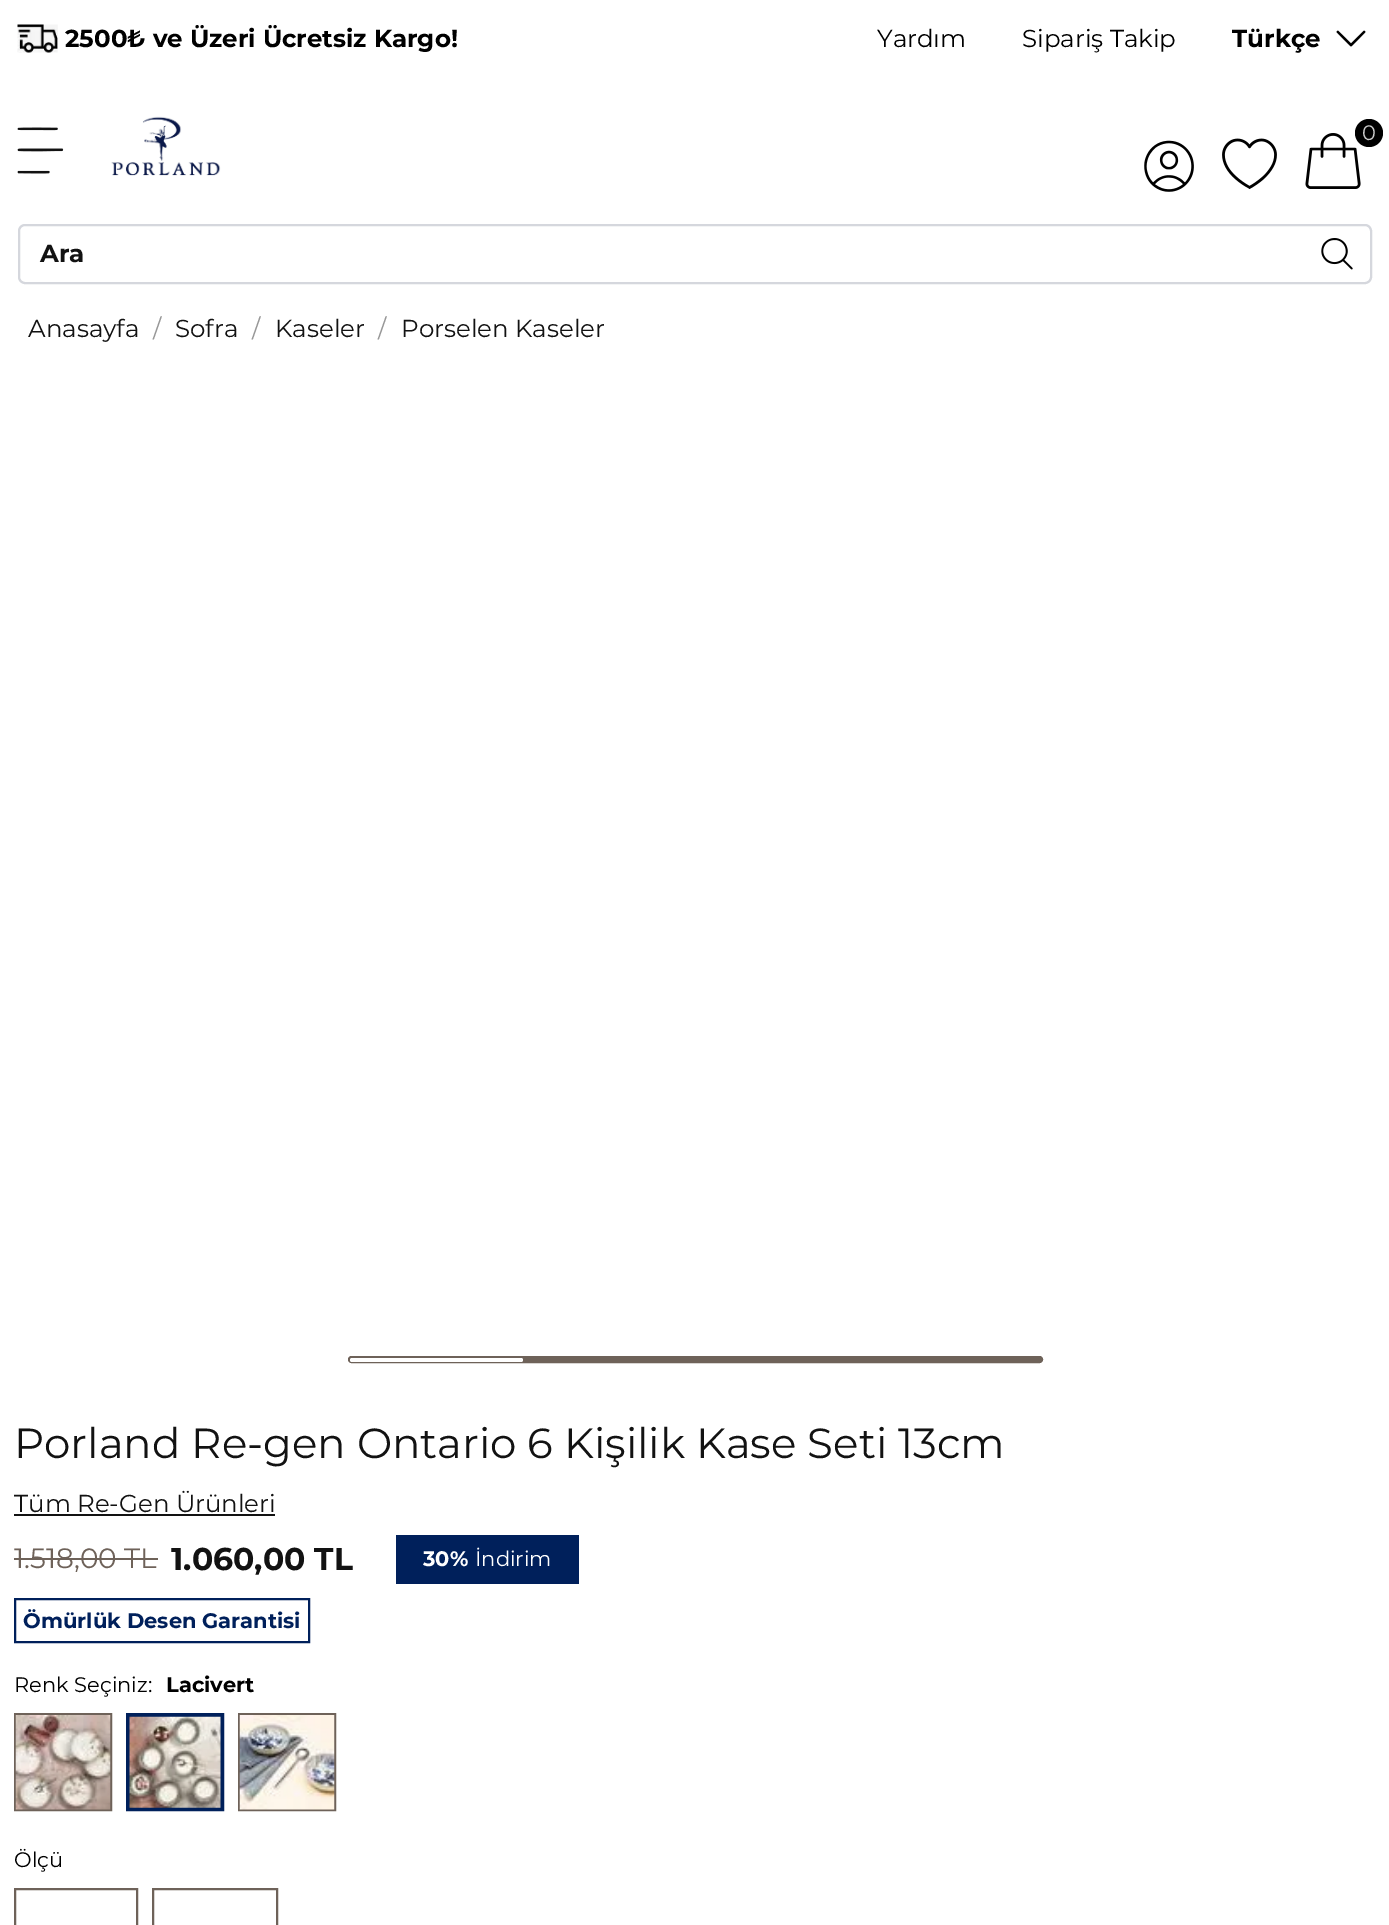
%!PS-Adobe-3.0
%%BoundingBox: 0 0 1389 1925
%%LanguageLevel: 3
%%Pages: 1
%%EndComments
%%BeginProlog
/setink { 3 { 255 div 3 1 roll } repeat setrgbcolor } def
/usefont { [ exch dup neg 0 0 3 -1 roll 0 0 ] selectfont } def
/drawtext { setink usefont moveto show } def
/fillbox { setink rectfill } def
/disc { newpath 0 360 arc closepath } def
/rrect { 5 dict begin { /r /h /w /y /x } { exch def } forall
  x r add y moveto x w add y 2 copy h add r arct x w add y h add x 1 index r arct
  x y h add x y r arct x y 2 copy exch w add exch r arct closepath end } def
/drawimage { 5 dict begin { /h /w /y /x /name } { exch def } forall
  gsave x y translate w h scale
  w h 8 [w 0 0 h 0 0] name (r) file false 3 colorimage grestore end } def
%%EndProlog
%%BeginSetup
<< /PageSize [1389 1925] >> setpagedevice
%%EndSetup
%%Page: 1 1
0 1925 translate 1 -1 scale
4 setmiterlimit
0 0 1389 1925 255 255 255 fillbox
(assets/img1.rgb) 17 24 41 29 drawimage
(2500₺ ve Üzeri Ücretsiz Kargo!) 65 47 /Montserrat-Bold 24.5 0 0 0 drawtext
(Yardım) 877 47 /Montserrat-Regular 24.5 0 0 0 drawtext
(Sipariş Takip) 1022 47 /Montserrat-Regular 24.5 0 0 0 drawtext
(Türkçe) 1232 47 /Montserrat-Bold 24.5 0 0 0 drawtext
(assets/img2.rgb) 1336 30 30 17 drawimage
(assets/img3.rgb) 17 127 47 47 drawimage
(assets/img4.rgb) 111 116 110 60 drawimage
(assets/img5.rgb) 1305 133 56 56 drawimage
1369 133 14 disc fill
(0) 1362 140 /Montserrat-Regular 21 201 201 201 drawtext
(assets/img6.rgb) 1144 140 50 52 drawimage
(assets/img7.rgb) 1222 138 55 51 drawimage
213 215 221 setink
2 setlinewidth
19 225 1352 58 6 rrect stroke
(Ara) 40 262 /Montserrat-Bold 24.5 18 18 18 drawtext
(assets/img8.rgb) 1321 238 32 32 drawimage
(Anasayfa) 28 337 /Montserrat-Regular 24.5 18 18 18 drawtext
(/) 153 337 /Montserrat-Regular 24.5 152 152 152 drawtext
(Sofra) 175 337 /Montserrat-Regular 24.5 18 18 18 drawtext
(/) 252 337 /Montserrat-Regular 24.5 152 152 152 drawtext
(Kaseler) 275 337 /Montserrat-Regular 24.5 18 18 18 drawtext
(/) 378 337 /Montserrat-Regular 24.5 152 152 152 drawtext
(Porselen Kaseler) 401 337 /Montserrat-Regular 24.5 18 18 18 drawtext
110 98 89 setink
349 1357 693 5 2.5 rrect gsave fill grestore
stroke
255 255 255 setink
350 1358 173 4 2 rrect fill
(Porland Re-gen Ontario 6 Kişilik Kase Seti 13cm) 14 1458 /Montserrat-Regular 42 18 18 18 drawtext
(Tüm Re-Gen Ürünleri) 14 1512 /Montserrat-Regular 24.5 18 18 18 drawtext
14 1514 261 2 18 18 18 fillbox
(1.518,00 TL) 14 1568 /Montserrat-Regular 28 110 98 89 drawtext
14 1558 144 2 110 98 89 fillbox
(1.060,00 TL) 171 1570 /Montserrat-Bold 31.5 18 18 18 drawtext
396 1535 183 49 0 32 91 fillbox
(30%) 423 1566 /Montserrat-Bold 21 255 255 255 drawtext
(İndirim) 475 1566 /Montserrat-Regular 21 255 255 255 drawtext
0 32 91 setink
15 1599 294 43 rectstroke
(Ömürlük Desen Garantisi) 23 1628 /Montserrat-Bold 21 0 32 91 drawtext
(Renk Seçiniz:) 14 1692 /Montserrat-Regular 21 0 0 0 drawtext
(Lacivert) 166 1692 /Montserrat-Bold 21 0 0 0 drawtext
110 98 89 setink
15 1714 96 96 rectstroke
(assets/img9.rgb) 15 1715 96 95 drawimage
0 32 91 setink
4 setlinewidth
128 1715 94 94 rectstroke
(assets/img10.rgb) 129 1716 92 92 drawimage
110 98 89 setink
2 setlinewidth
239 1714 96 96 rectstroke
(assets/img11.rgb) 239 1715 96 95 drawimage
(Ölçü) 14 1867 /Montserrat-Regular 21 0 0 0 drawtext
110 98 89 setink
15 1889 122 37 rectstroke
153 1889 124 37 rectstroke
showpage
%%EOF
